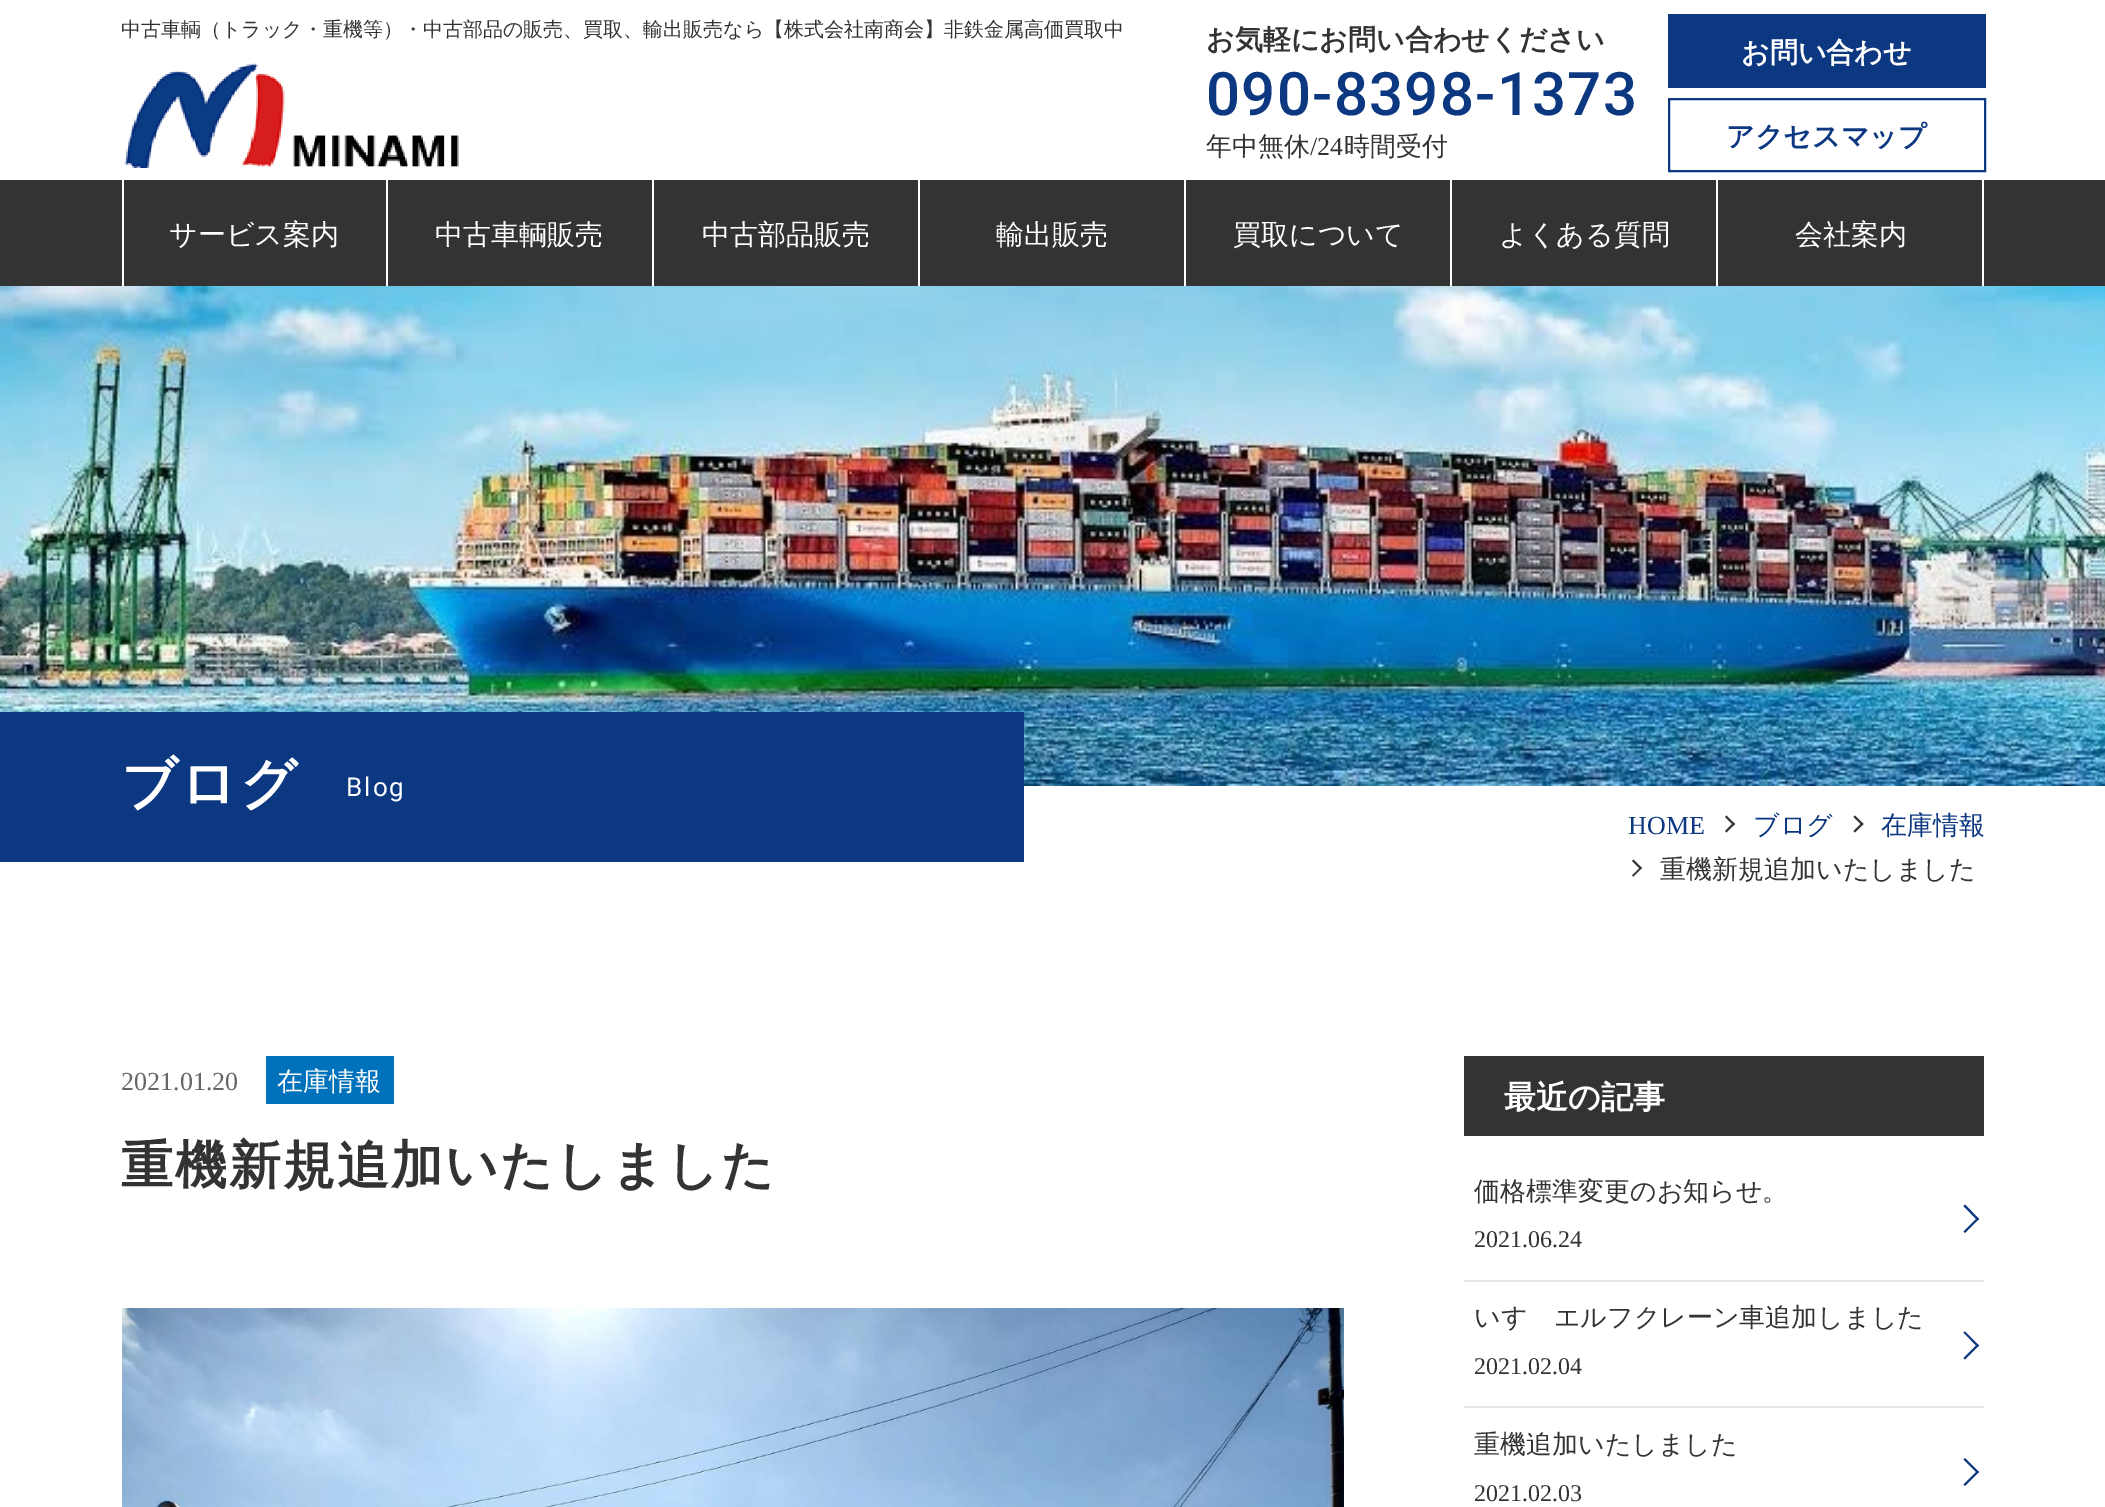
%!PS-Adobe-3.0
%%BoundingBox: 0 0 2105 1507
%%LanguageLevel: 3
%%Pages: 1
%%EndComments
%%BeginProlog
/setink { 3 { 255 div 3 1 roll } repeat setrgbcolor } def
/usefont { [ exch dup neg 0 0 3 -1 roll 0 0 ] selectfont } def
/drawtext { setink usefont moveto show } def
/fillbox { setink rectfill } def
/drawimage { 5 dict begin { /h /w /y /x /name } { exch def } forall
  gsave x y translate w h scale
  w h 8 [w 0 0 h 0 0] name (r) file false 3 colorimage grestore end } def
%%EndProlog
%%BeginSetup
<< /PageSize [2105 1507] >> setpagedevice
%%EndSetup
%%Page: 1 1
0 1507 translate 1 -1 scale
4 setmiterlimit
0 0 2105 1507 255 255 255 fillbox
(中古車輌（トラック・重機等）・中古部品の販売、買取、輸出販売なら【株式会社南商会】非鉄金属高価買取中) 121 36 /WenQuanYiZenHei-Medium 20 51 51 51 drawtext
(assets/img1.rgb) 124 63 335 105 drawimage
(お気軽にお問い合わせください) 1206 49 /WenQuanYiZenHei-Bold 28 51 51 51 drawtext
/Roboto-Medium 60 usefont
12 55 129 setink
1206 115 moveto 1.25 0 (090-8398-1373) ashow
(年中無休) 1206 155 /WenQuanYiZenHei-Medium 26 51 51 51 drawtext
(/24) 1310 155 /LiberationSerif-Regular 26 51 51 51 drawtext
(時間受付) 1344 155 /WenQuanYiZenHei-Medium 26 51 51 51 drawtext
1668 14 318 74 12 55 129 fillbox
(お問い合わせ) 1741 62 /WenQuanYiZenHei-Bold 28 255 255 255 drawtext
12 55 129 setink
2 setlinewidth
1669 99 316 72 rectstroke
(アクセスマップ) 1726 146 /WenQuanYiZenHei-Bold 28 12 55 129 drawtext
0 180 2105 106 51 51 51 fillbox
386 180 2 106 255 255 255 fillbox
122 180 2 106 255 255 255 fillbox
(サービス案内) 169 244 /WenQuanYiZenHei-Medium 28 255 255 255 drawtext
652 180 2 106 255 255 255 fillbox
(中古車輌販売) 435 244 /WenQuanYiZenHei-Medium 28 255 255 255 drawtext
918 180 2 106 255 255 255 fillbox
(中古部品販売) 702 244 /WenQuanYiZenHei-Medium 28 255 255 255 drawtext
1184 180 2 106 255 255 255 fillbox
(輸出販売) 996 244 /WenQuanYiZenHei-Medium 28 255 255 255 drawtext
1450 180 2 106 255 255 255 fillbox
(買取について) 1233 244 /WenQuanYiZenHei-Medium 28 255 255 255 drawtext
1716 180 2 106 255 255 255 fillbox
(よくある質問) 1499 244 /WenQuanYiZenHei-Medium 28 255 255 255 drawtext
1982 180 2 106 255 255 255 fillbox
(会社案内) 1795 244 /WenQuanYiZenHei-Medium 28 255 255 255 drawtext
(assets/img2.rgb) 0 286 2105 500 drawimage
0 712 1024 150 12 55 129 fillbox
/WenQuanYiZenHei-Bold 56 usefont
255 255 255 setink
121 803 moveto 2 0 (ブログ) ashow
/Roboto-Regular 26 usefont
346 796 moveto 2 0 (Blog) ashow
(2021.01.20) 121 1090 /LiberationSerif-Regular 26 102 102 102 drawtext
266 1056 128 48 0 113 187 fillbox
(在庫情報) 277 1090 /WenQuanYiZenHei-Medium 26 255 255 255 drawtext
/WenQuanYiZenHei-Bold 52 usefont
51 51 51 setink
121 1183 moveto 2 0 (重機新規追加いたしました) ashow
(assets/img3.rgb) 122 1308 1222 199 drawimage
1464 1056 520 80 51 51 51 fillbox
(最近の記事) 1504 1108 /WenQuanYiZenHei-Bold 32 255 255 255 drawtext
1464 1280 520 2 229 229 229 fillbox
(価格標準変更のお知らせ。) 1474 1200 /WenQuanYiZenHei-Medium 26 51 51 51 drawtext
12 55 129 setink
1965 1204.5 moveto 1979 1219 lineto 1977.5 1220.5 lineto 1963.5 1206 lineto closepath fill
1977.5 1217.5 moveto 1979 1219 lineto 1965 1233 lineto 1963.5 1231.5 lineto closepath fill
(2021.06.24) 1474 1247 /LiberationSerif-Regular 24 51 51 51 drawtext
1464 1406 520 2 229 229 229 fillbox
(いすゞエルフクレーン車追加しました) 1474 1326 /WenQuanYiZenHei-Medium 26 51 51 51 drawtext
12 55 129 setink
1965 1331.5 moveto 1979 1345.5 lineto 1977.5 1347 lineto 1963.5 1332.5 lineto closepath fill
1977.5 1344 moveto 1979 1345.5 lineto 1965 1359.5 lineto 1963.5 1358 lineto closepath fill
(2021.02.04) 1474 1374 /LiberationSerif-Regular 24 51 51 51 drawtext
(重機追加いたしました) 1474 1453 /WenQuanYiZenHei-Medium 26 51 51 51 drawtext
12 55 129 setink
1965 1458 moveto 1979 1472 lineto 1977.5 1473.5 lineto 1963.5 1459.5 lineto closepath fill
1977.5 1470.5 moveto 1979 1472 lineto 1965 1486 lineto 1963.5 1484.5 lineto closepath fill
(2021.02.03) 1474 1501 /LiberationSerif-Regular 24 51 51 51 drawtext
(HOME) 1628 834 /LiberationSerif-Regular 26 12 55 129 drawtext
51 51 51 setink
1726.5 815.5 moveto 1735 824 lineto 1733.5 825.5 lineto 1725 817 lineto closepath fill
1733.5 822.5 moveto 1735 824 lineto 1726.5 832.5 lineto 1725 831 lineto closepath fill
(ブログ) 1753 834 /WenQuanYiZenHei-Medium 26 12 55 129 drawtext
51 51 51 setink
1855 815.5 moveto 1863.5 824 lineto 1862 825.5 lineto 1853.5 817 lineto closepath fill
1862 822.5 moveto 1863.5 824 lineto 1855 832.5 lineto 1853.5 831 lineto closepath fill
(在庫情報) 1881 834 /WenQuanYiZenHei-Medium 26 12 55 129 drawtext
51 51 51 setink
1633.5 859.5 moveto 1642 868 lineto 1640.5 869.5 lineto 1632 861 lineto closepath fill
1640.5 867 moveto 1642 868 lineto 1633.5 876.5 lineto 1632 875.5 lineto closepath fill
(重機新規追加いたしました) 1660 878 /WenQuanYiZenHei-Medium 26 51 51 51 drawtext
showpage
%%EOF
